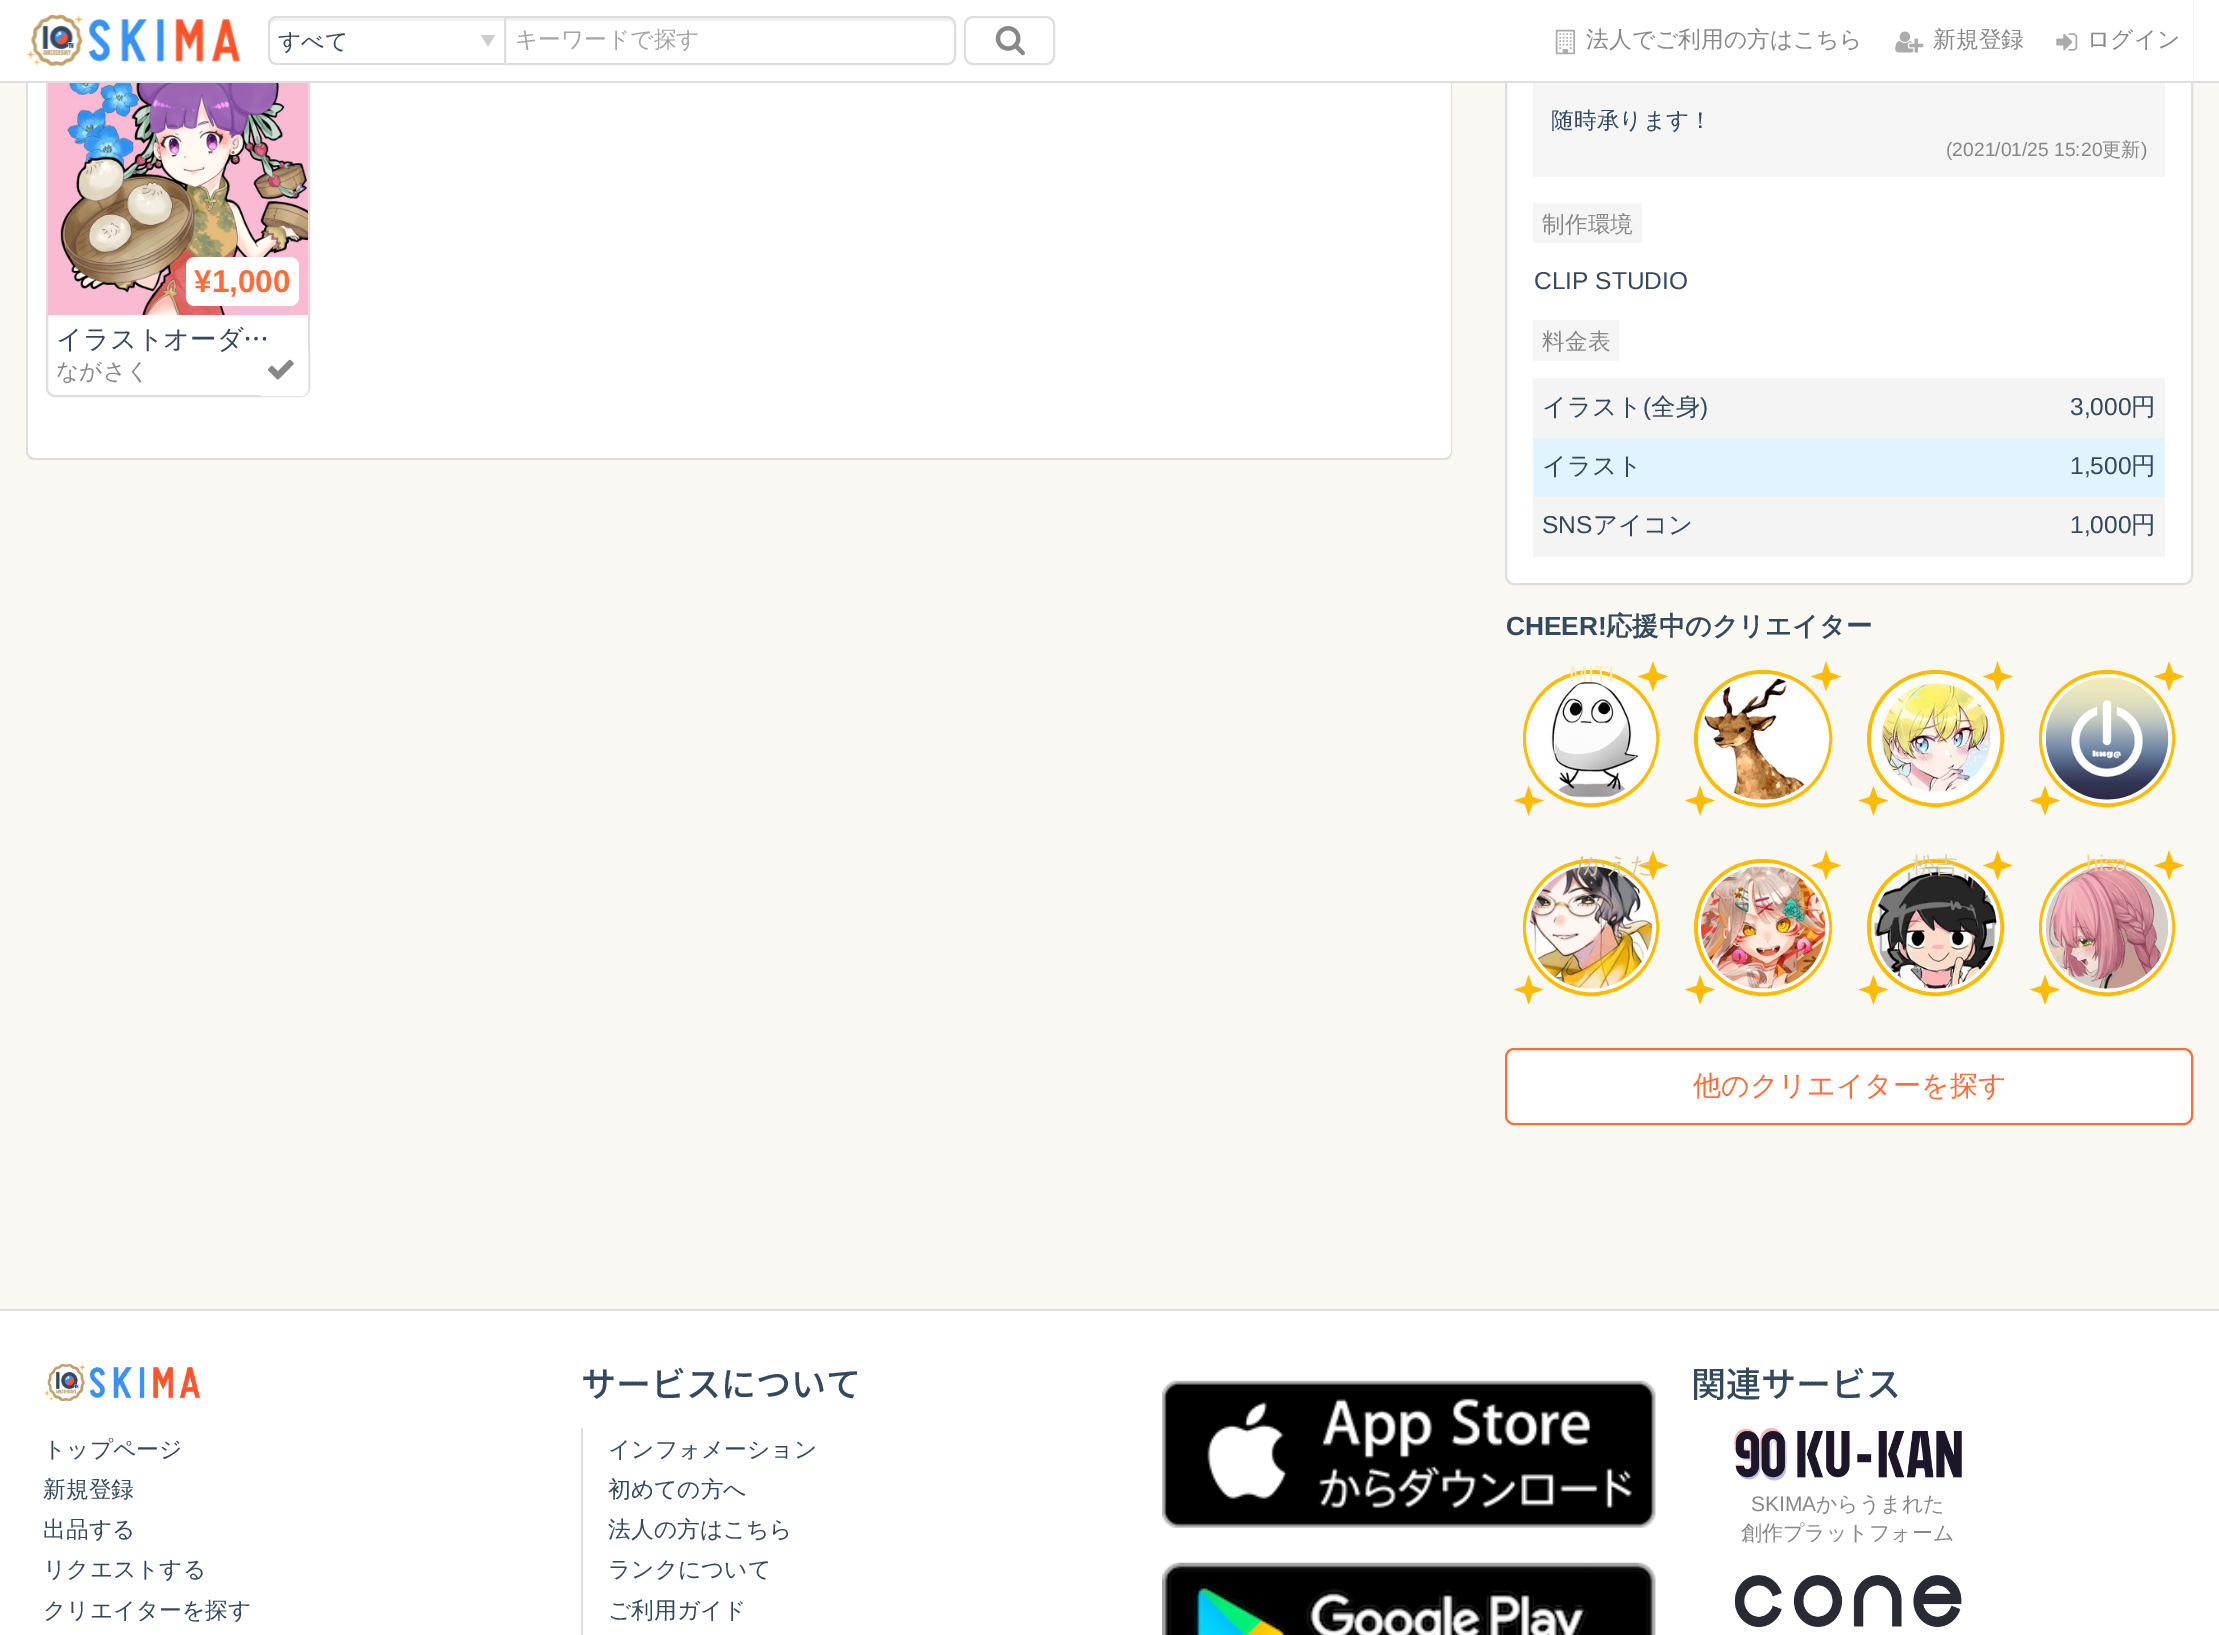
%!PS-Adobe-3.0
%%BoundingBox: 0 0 2219 1635
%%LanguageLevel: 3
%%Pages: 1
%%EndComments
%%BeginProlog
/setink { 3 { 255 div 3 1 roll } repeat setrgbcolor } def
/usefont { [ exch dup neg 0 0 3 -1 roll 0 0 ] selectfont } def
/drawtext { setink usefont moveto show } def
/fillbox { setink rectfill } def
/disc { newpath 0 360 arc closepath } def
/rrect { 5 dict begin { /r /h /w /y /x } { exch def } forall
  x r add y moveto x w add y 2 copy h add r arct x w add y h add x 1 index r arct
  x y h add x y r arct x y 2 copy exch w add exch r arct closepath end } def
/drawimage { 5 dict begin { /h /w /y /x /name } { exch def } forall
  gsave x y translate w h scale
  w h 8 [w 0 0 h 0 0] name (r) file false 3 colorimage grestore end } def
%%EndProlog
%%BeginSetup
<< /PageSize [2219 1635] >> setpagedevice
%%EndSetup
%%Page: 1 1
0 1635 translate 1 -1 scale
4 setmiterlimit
0 0 2219 1635 255 255 255 fillbox
0 83 2219 1226 249 248 242 fillbox
255 255 255 setink
28 -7 moveto 1451 -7 lineto 1451 452 lineto 1451 456 1448 459 1444 459 curveto 35 459 lineto 31 459 28 456 28 452 curveto closepath fill
222 222 222 setink
1452 -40 moveto 1452 452 lineto 1452 454 1451 456 1450 458 curveto 1449 456 lineto 1450 455 1451 454 1451 452 curveto 1451 -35 lineto closepath fill
1450 458 moveto 1448 459 1446 460 1444 460 curveto 35 460 lineto 33 460 30 459 29 458 curveto 30 456 lineto 31 457 33 458 35 458 curveto 1444 458 lineto 1446 458 1447 457 1449 456 curveto closepath fill
28 -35 moveto 28 452 lineto 28 454 29 455 30 456 curveto 29 458 lineto 26 454 lineto 26 -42 lineto closepath fill
2 setlinewidth
47 54 262 342 8 rrect stroke
255 255 255 setink
1506 -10 686 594 8 rrect gsave fill grestore
222 222 222 setink
stroke
26 0 2167 81 255 255 255 fillbox
0 81 2219 2 222 222 222 fillbox
(assets/img1.rgb) 26 14 215 52 drawimage
204 204 204 setink
488 46.5 moveto 481 35 lineto 495 35 lineto closepath fill
242 242 242 setink
276 21 moveto 504 21 lineto 504 18 lineto 277 18 lineto 273 18 270 21 270 25 curveto 270 28 lineto 270 24 273 21 276 21 curveto closepath fill
222 222 222 setink
276 16 moveto 504 16 lineto 504 65 lineto 276 65 lineto 272 65 268 61 268 56 curveto 268 24 lineto 268 20 272 16 276 16 curveto closepath 276 18 moveto 504 18 lineto 504 63 lineto 276 63 lineto 273 63 270 60 270 56 curveto 270 24 lineto 270 21 273 18 276 18 curveto closepath eofill
(すべて) 278 49 /WenQuanYiZenHei-Medium 22.75 52 73 94 drawtext
242 242 242 setink
506 21 moveto 947 21 lineto 951 21 954 24 954 28 curveto 954 24 953 19 948 18 curveto 506 18 lineto closepath fill
222 222 222 setink
505 17 moveto 947 17 lineto 951.5 17 955 20.5 955 25 curveto 955 56 lineto 955 60.5 951.5 64 947 64 curveto 505 64 lineto closepath stroke
(キーワードで探す) 515 47 /WenQuanYiZenHei-Medium 22.75 164 164 164 drawtext
222 222 222 setink
965 17 89 47 8 rrect stroke
(assets/img2.rgb) 995 26 30 30 drawimage
(assets/img3.rgb) 1555 29 20 26 drawimage
(法人でご利用の方はこちら) 1586 47 /WenQuanYiZenHei-Medium 22.75 136 136 136 drawtext
(assets/img4.rgb) 1895 31 29 22 drawimage
(新規登録) 1933 47 /WenQuanYiZenHei-Medium 22.75 136 136 136 drawtext
(assets/img5.rgb) 2056 33 22 18 drawimage
(ログイン) 2087 47 /WenQuanYiZenHei-Medium 22.75 136 136 136 drawtext
47 83 1 232 243 243 243 fillbox
(assets/img6.rgb) 47 83 261 232 drawimage
255 255 255 setink
186 257 113 49 9 rrect fill
(¥1,000) 194 292 /LiberationSans-Bold 31.5 255 110 58 drawtext
(イラストオーダ…) 56 348 /WenQuanYiZenHei-Medium 26.25 52 73 94 drawtext
(ながさく) 56 379 /WenQuanYiZenHei-Medium 22.75 136 136 136 drawtext
255 255 255 setink
257 344 50 51 6 rrect stroke
(assets/img7.rgb) 268 359 26 21 drawimage
1533 83 632 94 245 245 245 fillbox
(随時承ります！) 1551 128 /WenQuanYiZenHei-Medium 22.75 52 73 94 drawtext
(\(2021/01/25 15:20) 1946 156 /LiberationSans-Regular 19.25 136 136 136 drawtext
(更新) 2102 156 /WenQuanYiZenHei-Medium 19.25 136 136 136 drawtext
(\)) 2141 156 /LiberationSans-Regular 19.25 136 136 136 drawtext
1533 203 109 40 245 245 245 fillbox
(制作環境) 1542 232 /WenQuanYiZenHei-Medium 22.75 136 136 136 drawtext
(CLIP STUDIO) 1534 289 /LiberationSans-Regular 24.5 52 73 94 drawtext
1533 320 86 41 245 245 245 fillbox
(料金表) 1542 349 /WenQuanYiZenHei-Medium 22.75 136 136 136 drawtext
1533 378 632 60 244 244 244 fillbox
(イラスト) 1542 415 /WenQuanYiZenHei-Medium 24.5 52 73 94 drawtext
(\() 1643 415 /LiberationSans-Regular 24.5 52 73 94 drawtext
(全身) 1651 415 /WenQuanYiZenHei-Medium 24.5 52 73 94 drawtext
(\)) 1700 415 /LiberationSans-Regular 24.5 52 73 94 drawtext
(3,000) 2070 415 /LiberationSans-Regular 24.5 52 73 94 drawtext
(円) 2131 415 /WenQuanYiZenHei-Medium 24.5 52 73 94 drawtext
1533 438 632 59 223 244 255 fillbox
(イラスト) 1542 474 /WenQuanYiZenHei-Medium 24.5 52 73 94 drawtext
(1,500) 2070 474 /LiberationSans-Regular 24.5 52 73 94 drawtext
(円) 2131 474 /WenQuanYiZenHei-Medium 24.5 52 73 94 drawtext
1533 497 632 60 244 244 244 fillbox
(SNS) 1542 533 /LiberationSans-Regular 24.5 52 73 94 drawtext
(アイコン) 1593 533 /WenQuanYiZenHei-Medium 24.5 52 73 94 drawtext
(1,000) 2070 533 /LiberationSans-Regular 24.5 52 73 94 drawtext
(円) 2131 533 /WenQuanYiZenHei-Medium 24.5 52 73 94 drawtext
(CHEER!) 1506 635 /LiberationSans-Bold 26.25 52 73 94 drawtext
(応援中のクリエイター) 1606 635 /WenQuanYiZenHei-Bold 26.25 52 73 94 drawtext
255 187 0 setink
4 setlinewidth
1525 672 132 133 66 rrect stroke
255 255 255 setink
1528 676 126 125 62.5 rrect stroke
(assets/img8.rgb) 1530 678 122 121 drawimage
255 187 0 setink
1657 680.5 moveto 1668 676.5 lineto 1657 672.5 lineto 1653 661.5 lineto 1649 672.5 lineto 1638 676.5 lineto 1649 680.5 lineto 1653 691 lineto closepath fill
1532.5 804.5 moveto 1543.5 800.5 lineto 1532.5 797 lineto 1528.5 786 lineto 1525 797 lineto 1514 800.5 lineto 1525 804.5 lineto 1528.5 815.5 lineto closepath fill
(MITI) 1569 682 /LiberationSans-Regular 22.75 252 236 191 drawtext
255 187 0 setink
1696 672 134 133 66.5 rrect stroke
255 255 255 setink
1700 676 127 125 62.5 rrect stroke
(assets/img9.rgb) 1702 678 123 122 drawimage
255 187 0 setink
1830 680.5 moveto 1841 676.5 lineto 1830 672.5 lineto 1826 661.5 lineto 1822.5 672.5 lineto 1811 676.5 lineto 1822.5 680.5 lineto 1826 691 lineto closepath fill
1704 804.5 moveto 1715 800.5 lineto 1704 797 lineto 1700 786 lineto 1696.5 797 lineto 1685 800.5 lineto 1696.5 804.5 lineto 1700 815.5 lineto closepath fill
1935.5 738.5 66.5 disc stroke
255 255 255 setink
1935.5 738.5 62.5 disc stroke
(assets/img10.rgb) 1874 678 123 121 drawimage
255 187 0 setink
2001.5 680.5 moveto 2012.5 676.5 lineto 2001.5 672.5 lineto 1997.5 661.5 lineto 1994 672.5 lineto 1983 676.5 lineto 1994 680.5 lineto 1997.5 691 lineto closepath fill
1877.5 804.5 moveto 1888 800.5 lineto 1877.5 797 lineto 1873.5 786 lineto 1869.5 797 lineto 1858.5 800.5 lineto 1869.5 804.5 lineto 1873.5 815.5 lineto closepath fill
2041 672 132 133 66 rrect stroke
255 255 255 setink
2044 676 126 125 62.5 rrect stroke
(assets/img11.rgb) 2045 677 124 123 drawimage
255 187 0 setink
2173 680.5 moveto 2184 676.5 lineto 2173 672.5 lineto 2169 661.5 lineto 2165.5 672.5 lineto 2154 676.5 lineto 2165.5 680.5 lineto 2169 691 lineto closepath fill
2049 804.5 moveto 2060 800.5 lineto 2049 797 lineto 2045 786 lineto 2041 797 lineto 2030 800.5 lineto 2041 804.5 lineto 2045 815.5 lineto closepath fill
1525 861 132 133 66 rrect stroke
255 255 255 setink
1528 865 126 125 62.5 rrect stroke
(assets/img12.rgb) 1529 866 123 123 drawimage
255 187 0 setink
1657 869.5 moveto 1668 865.5 lineto 1657 861.5 lineto 1653 850.5 lineto 1649 861.5 lineto 1638 865.5 lineto 1649 869.5 lineto 1653 880 lineto closepath fill
1532.5 993.5 moveto 1543.5 989.5 lineto 1532.5 986 lineto 1528.5 975 lineto 1525 986 lineto 1514 989.5 lineto 1525 993.5 lineto 1528.5 1004.5 lineto closepath fill
(/) 1577 873 /LiberationSans-Regular 22.75 203 185 145 drawtext
(かえた) 1583 873 /WenQuanYiZenHei-Medium 22.75 215 200 160 drawtext
255 187 0 setink
1696 861 134 133 66.5 rrect stroke
255 255 255 setink
1700 865 127 125 62.5 rrect stroke
(assets/img13.rgb) 1701 866 125 123 drawimage
255 187 0 setink
1830 869.5 moveto 1841 865.5 lineto 1830 861.5 lineto 1826 850.5 lineto 1822.5 861.5 lineto 1811 865.5 lineto 1822.5 869.5 lineto 1826 880 lineto closepath fill
1704 993.5 moveto 1715 989.5 lineto 1704 986 lineto 1700 975 lineto 1696.5 986 lineto 1685 989.5 lineto 1696.5 993.5 lineto 1700 1004.5 lineto closepath fill
1935.5 927.5 66.5 disc stroke
255 255 255 setink
1935.5 927.5 62.5 disc stroke
(assets/img14.rgb) 1874 866 123 123 drawimage
255 187 0 setink
2001.5 869.5 moveto 2012.5 865.5 lineto 2001.5 861.5 lineto 1997.5 850.5 lineto 1994 861.5 lineto 1983 865.5 lineto 1994 869.5 lineto 1997.5 880 lineto closepath fill
1877.5 993.5 moveto 1888 989.5 lineto 1877.5 986 lineto 1873.5 975 lineto 1869.5 986 lineto 1858.5 989.5 lineto 1869.5 993.5 lineto 1873.5 1004.5 lineto closepath fill
(松吉) 1912 873 /WenQuanYiZenHei-Medium 22.75 219 206 169 drawtext
255 187 0 setink
2041 861 132 133 66 rrect stroke
255 255 255 setink
2044 865 126 125 62.5 rrect stroke
(assets/img15.rgb) 2045 866 123 123 drawimage
255 187 0 setink
2173 869.5 moveto 2184 865.5 lineto 2173 861.5 lineto 2169 850.5 lineto 2165.5 861.5 lineto 2154 865.5 lineto 2165.5 869.5 lineto 2169 880 lineto closepath fill
2049 993.5 moveto 2060 989.5 lineto 2049 986 lineto 2045 975 lineto 2041 986 lineto 2030 989.5 lineto 2041 993.5 lineto 2045 1004.5 lineto closepath fill
(hisa) 2086 871 /LiberationSans-Regular 22.75 242 208 159 drawtext
255 255 255 setink
1506 1049 686 75 8 rrect gsave fill grestore
255 110 58 setink
2 setlinewidth
stroke
(他のクリエイターを探す) 1693 1095 /WenQuanYiZenHei-Medium 28 255 110 58 drawtext
0 1309 2219 2 222 222 222 fillbox
(assets/img16.rgb) 43 1364 157 37 drawimage
(トップページ) 43 1457 /WenQuanYiZenHei-Medium 22.75 52 73 94 drawtext
(新規登録) 43 1497 /WenQuanYiZenHei-Medium 22.75 52 73 94 drawtext
(出品する) 43 1537 /WenQuanYiZenHei-Medium 22.75 52 73 94 drawtext
(リクエストする) 43 1577 /WenQuanYiZenHei-Medium 22.75 52 73 94 drawtext
(クリエイターを探す) 43 1618 /WenQuanYiZenHei-Medium 22.75 52 73 94 drawtext
(サービスについて) 581 1397 /NotoSansJP-Medium 35 52 73 94 drawtext
581 1428 2 207 222 222 222 fillbox
(インフォメーション) 608 1457 /WenQuanYiZenHei-Medium 22.75 52 73 94 drawtext
(初めての方へ) 608 1497 /WenQuanYiZenHei-Medium 22.75 52 73 94 drawtext
(法人の方はこちら) 608 1537 /WenQuanYiZenHei-Medium 22.75 52 73 94 drawtext
(ランクについて) 608 1577 /WenQuanYiZenHei-Medium 22.75 52 73 94 drawtext
(ご利用ガイド) 608 1618 /WenQuanYiZenHei-Medium 22.75 52 73 94 drawtext
(assets/img17.rgb) 1162 1380 494 148 drawimage
(assets/img18.rgb) 1162 1562 494 73 drawimage
(関連サービス) 1691 1397 /NotoSansJP-Medium 35 52 73 94 drawtext
(assets/img19.rgb) 1734 1428 228 53 drawimage
(SKIMA) 1751 1511 /LiberationSans-Regular 21 136 136 136 drawtext
(からうまれた) 1816 1511 /WenQuanYiZenHei-Medium 21 136 136 136 drawtext
(創作プラットフォーム) 1741 1540 /WenQuanYiZenHei-Medium 21 136 136 136 drawtext
(assets/img20.rgb) 1734 1575 228 53 drawimage
showpage
%%EOF
